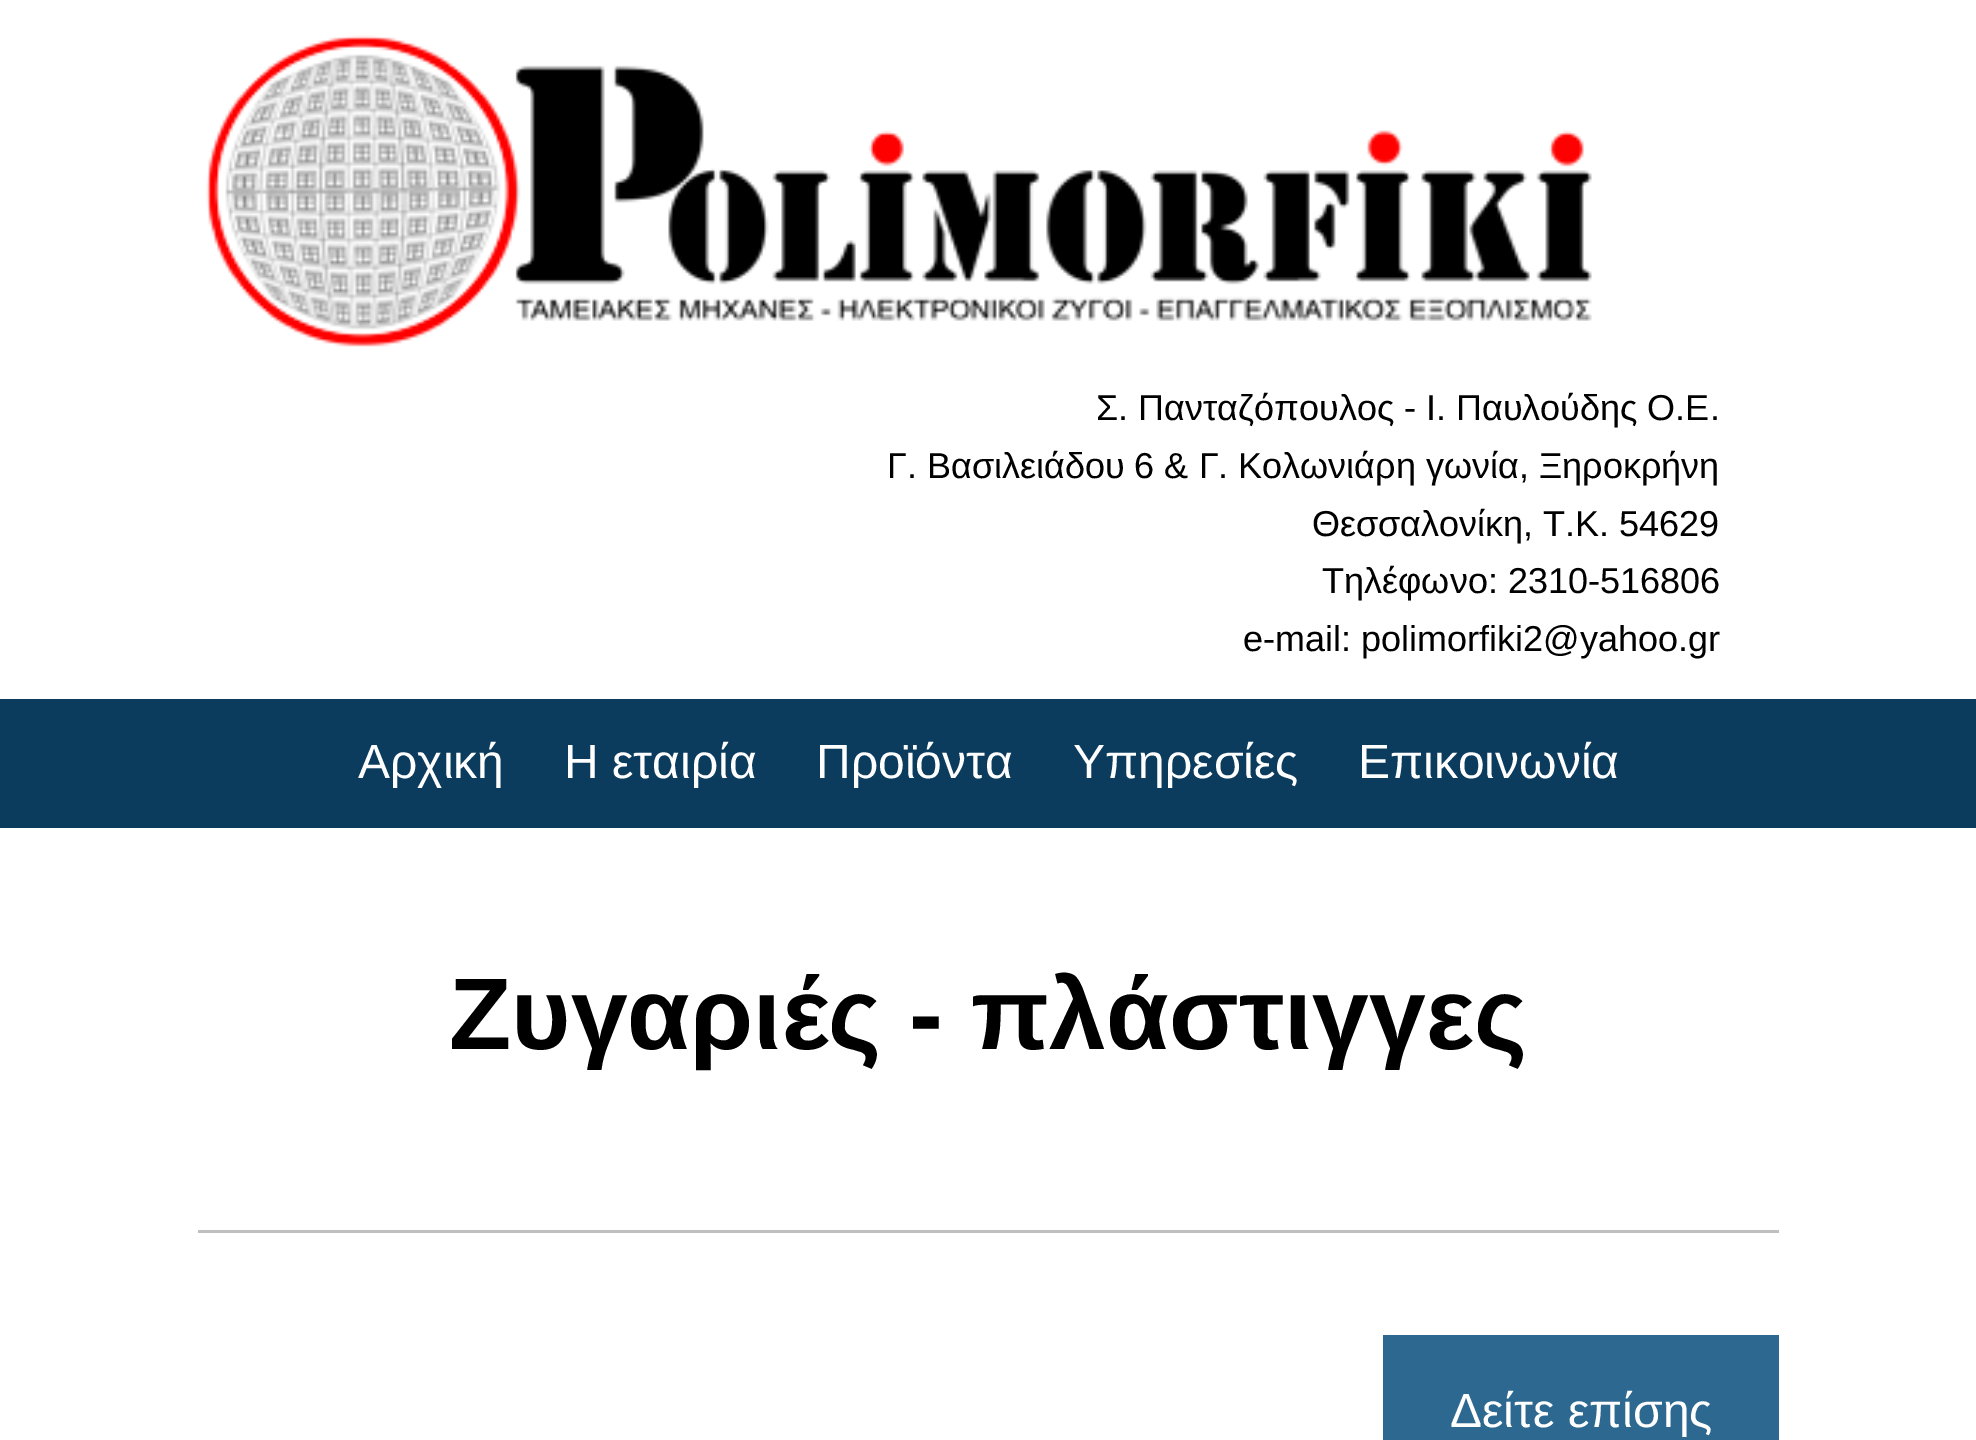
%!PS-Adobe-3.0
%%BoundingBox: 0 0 1976 1440
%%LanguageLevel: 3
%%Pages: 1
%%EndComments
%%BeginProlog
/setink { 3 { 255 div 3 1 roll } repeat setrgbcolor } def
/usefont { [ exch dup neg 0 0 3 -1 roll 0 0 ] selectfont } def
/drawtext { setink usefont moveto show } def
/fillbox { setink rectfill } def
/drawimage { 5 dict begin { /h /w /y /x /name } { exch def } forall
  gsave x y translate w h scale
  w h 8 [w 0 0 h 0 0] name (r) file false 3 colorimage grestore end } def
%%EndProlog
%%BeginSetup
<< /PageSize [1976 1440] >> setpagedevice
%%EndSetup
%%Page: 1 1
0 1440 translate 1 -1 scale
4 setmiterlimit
0 0 1976 1440 255 255 255 fillbox
(assets/img1.rgb) 206 35 1386 312 drawimage
(Σ. Πανταζόπουλος - Ι. Παυλούδης Ο.Ε.) 1096 420 /LiberationSans-Regular 36 0 0 0 drawtext
(Γ. Βασιλειάδου 6 & Γ. Κολωνιάρη γωνία, Ξηροκρήνη) 887 478 /LiberationSans-Regular 36 0 0 0 drawtext
(Θεσσαλονίκη, Τ.Κ. 54629) 1312 536 /LiberationSans-Regular 36 0 0 0 drawtext
(Τηλέφωνο: 2310-516806) 1322 593 /LiberationSans-Regular 36 0 0 0 drawtext
(e-mail: polimorfiki2@yahoo.gr) 1243 651 /LiberationSans-Regular 36 0 0 0 drawtext
0 699 1976 129 11 60 93 fillbox
(Αρχική) 358 778 /LiberationSans-Regular 48 255 255 255 drawtext
(Η εταιρία) 564 778 /LiberationSans-Regular 48 255 255 255 drawtext
(Προϊόντα) 816 778 /LiberationSans-Regular 48 255 255 255 drawtext
(Υπηρεσίες) 1073 778 /LiberationSans-Regular 48 255 255 255 drawtext
(Επικοινωνία) 1358 778 /LiberationSans-Regular 48 255 255 255 drawtext
(Ζυγαριές - πλάστιγγες) 449 1049 /LiberationSans-Bold 102 0 0 0 drawtext
198 1230 1581 3 191 191 191 fillbox
1383 1335 396 105 44 104 144 fillbox
(Δείτε επίσης) 1450 1427 /LiberationSans-Regular 48 255 255 255 drawtext
showpage
%%EOF
